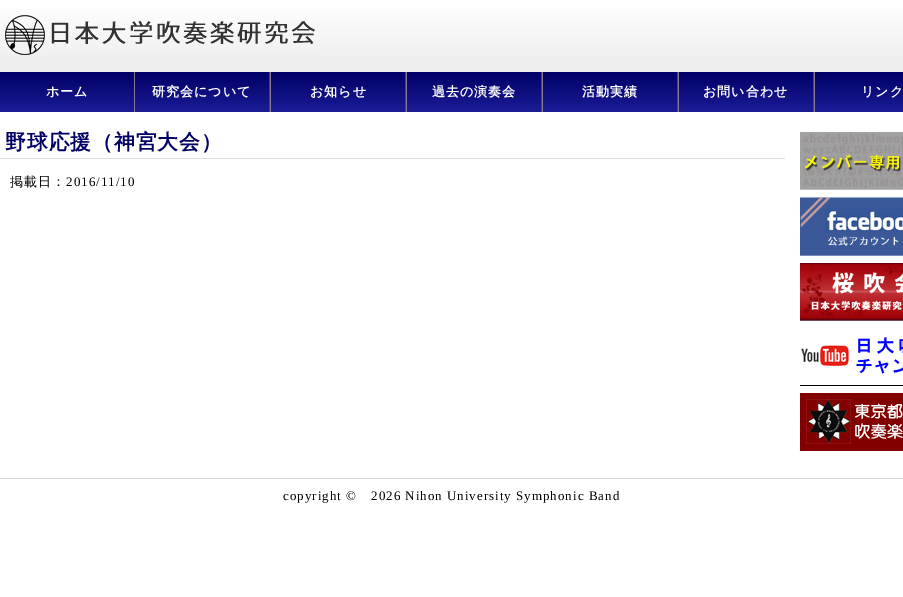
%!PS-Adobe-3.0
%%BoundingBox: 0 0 903 597
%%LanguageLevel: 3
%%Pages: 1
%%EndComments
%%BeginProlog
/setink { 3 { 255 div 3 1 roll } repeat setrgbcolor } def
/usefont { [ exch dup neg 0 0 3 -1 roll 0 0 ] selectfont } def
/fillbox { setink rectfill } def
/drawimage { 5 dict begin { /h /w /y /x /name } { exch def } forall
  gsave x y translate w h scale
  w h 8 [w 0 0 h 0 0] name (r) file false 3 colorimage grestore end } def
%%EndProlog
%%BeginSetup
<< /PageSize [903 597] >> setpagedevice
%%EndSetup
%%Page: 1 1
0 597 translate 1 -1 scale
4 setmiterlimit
0 0 903 597 255 255 255 fillbox
gsave 0 9 moveto 903 9 lineto 903 72 lineto 0 72 lineto closepath clip newpath
<< /ShadingType 2 /ColorSpace /DeviceRGB /Coords [475 0 475 72] /Extend [true true] /Function << /FunctionType 3 /Domain [0 1] /Functions [<< /FunctionType 2 /Domain [0 1] /C0 [1 1 1] /C1 [0.933 0.933 0.933] /N 1 >> << /FunctionType 2 /Domain [0 1] /C0 [0.933 0.933 0.933] /C1 [0.933 0.933 0.933] /N 1 >>] /Bounds [0.88] /Encode [0 1 0 1] >> >> shfill grestore
(assets/img1.rgb) 5 15 310 40 drawimage
gsave 0 72 moveto 134 72 lineto 134 112 lineto 0 112 lineto closepath clip newpath
<< /ShadingType 2 /ColorSpace /DeviceRGB /Coords [67 72 67 112] /Extend [true true] /Function << /FunctionType 2 /Domain [0 1] /C0 [0 0 0.4] /C1 [0.11 0.11 0.592] /N 1 >> >> shfill grestore
/WenQuanYiZenHei-Bold 13 usefont
46 96 moveto 1 0 (ホーム) ashow
gsave 135 72 moveto 269 72 lineto 269 112 lineto 135 112 lineto closepath clip newpath
<< /ShadingType 2 /ColorSpace /DeviceRGB /Coords [202 72 202 112] /Extend [true true] /Function << /FunctionType 2 /Domain [0 1] /C0 [0 0 0.4] /C1 [0.11 0.11 0.592] /N 1 >> >> shfill grestore
269 72 1 40 78 68 83 fillbox
134 72 1 40 136 121 144 fillbox
255 255 255 setink
152 96 moveto 1 0 (研究会について) ashow
gsave 271 72 moveto 405 72 lineto 405 112 lineto 271 112 lineto closepath clip newpath
<< /ShadingType 2 /ColorSpace /DeviceRGB /Coords [338 72 338 112] /Extend [true true] /Function << /FunctionType 2 /Domain [0 1] /C0 [0 0 0.4] /C1 [0.11 0.11 0.592] /N 1 >> >> shfill grestore
405 72 1 40 78 68 83 fillbox
270 72 1 40 136 121 144 fillbox
255 255 255 setink
310 96 moveto 1 0 (お知らせ) ashow
gsave 407 72 moveto 541 72 lineto 541 112 lineto 407 112 lineto closepath clip newpath
<< /ShadingType 2 /ColorSpace /DeviceRGB /Coords [474 72 474 112] /Extend [true true] /Function << /FunctionType 2 /Domain [0 1] /C0 [0 0 0.4] /C1 [0.11 0.11 0.592] /N 1 >> >> shfill grestore
541 72 1 40 78 68 83 fillbox
406 72 1 40 136 121 144 fillbox
255 255 255 setink
432 96 moveto 1 0 (過去の演奏会) ashow
gsave 543 72 moveto 677 72 lineto 677 112 lineto 543 112 lineto closepath clip newpath
<< /ShadingType 2 /ColorSpace /DeviceRGB /Coords [610 72 610 112] /Extend [true true] /Function << /FunctionType 2 /Domain [0 1] /C0 [0 0 0.4] /C1 [0.11 0.11 0.592] /N 1 >> >> shfill grestore
677 72 1 40 78 68 83 fillbox
542 72 1 40 136 121 144 fillbox
255 255 255 setink
582 96 moveto 1 0 (活動実績) ashow
gsave 679 72 moveto 813 72 lineto 813 112 lineto 679 112 lineto closepath clip newpath
<< /ShadingType 2 /ColorSpace /DeviceRGB /Coords [746 72 746 112] /Extend [true true] /Function << /FunctionType 2 /Domain [0 1] /C0 [0 0 0.4] /C1 [0.11 0.11 0.592] /N 1 >> >> shfill grestore
813 72 1 40 78 68 83 fillbox
678 72 1 40 136 121 144 fillbox
255 255 255 setink
703 96 moveto 1 0 (お問い合わせ) ashow
gsave 815 72 moveto 903 72 lineto 903 112 lineto 815 112 lineto closepath clip newpath
<< /ShadingType 2 /ColorSpace /DeviceRGB /Coords [882 72 882 112] /Extend [true true] /Function << /FunctionType 2 /Domain [0 1] /C0 [0 0 0.4] /C1 [0.11 0.11 0.592] /N 1 >> >> shfill grestore
814 72 1 40 136 121 144 fillbox
255 255 255 setink
861 96 moveto 1 0 (リンク) ashow
0 158 785 1 221 221 221 fillbox
/WenQuanYiZenHei-Bold 20.75 usefont
0 0 102 setink
5 149 moveto 1 0 (野球応援（神宮大会）) ashow
/WenQuanYiZenHei-Medium 13 usefont
0 0 0 setink
10 186 moveto 1 0 (掲載日：) ashow
/LiberationSerif-Regular 13 usefont
66 186 moveto 1 0 (2016/11/10) ashow
(assets/img2.rgb) 800 132 103 58 drawimage
(assets/img3.rgb) 800 197 103 59 drawimage
(assets/img4.rgb) 800 263 103 58 drawimage
(assets/img5.rgb) 800 337 103 49 drawimage
(assets/img6.rgb) 800 393 103 58 drawimage
0 478 903 1 217 217 217 fillbox
0 0 0 setink
283 500 moveto 1 0 (copyright ©) ashow
371 500 moveto 1 0 (2026 Nihon University Symphonic Band) ashow
showpage
%%EOF
